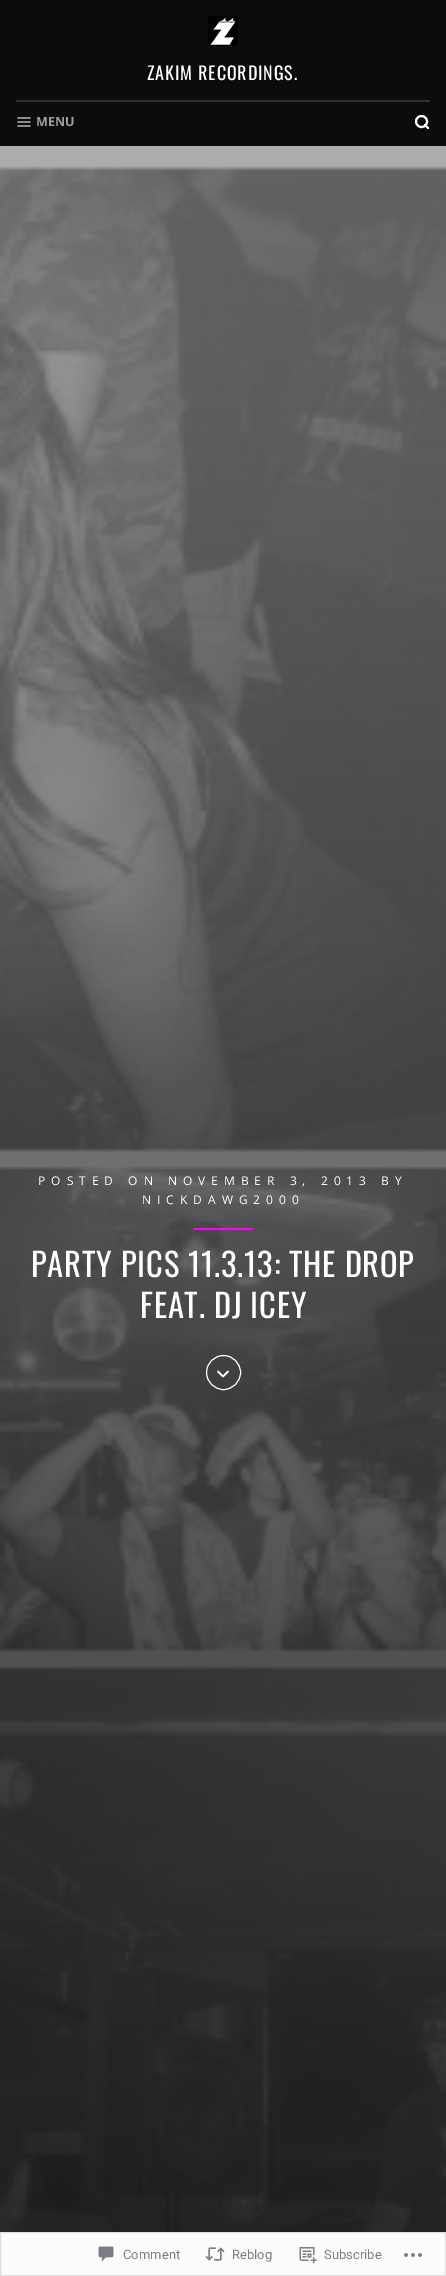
%!PS-Adobe-3.0
%%BoundingBox: 0 0 446 2276
%%LanguageLevel: 3
%%Pages: 1
%%EndComments
%%BeginProlog
/setink { 3 { 255 div 3 1 roll } repeat setrgbcolor } def
/usefont { [ exch dup neg 0 0 3 -1 roll 0 0 ] selectfont } def
/drawtext { setink usefont moveto show } def
/fillbox { setink rectfill } def
/setalpha { dup .setfillconstantalpha .setstrokeconstantalpha } def
/disc { newpath 0 360 arc closepath } def
/drawimage { 5 dict begin { /h /w /y /x /name } { exch def } forall
  gsave x y translate w h scale
  w h 8 [w 0 0 h 0 0] name (r) file false 3 colorimage grestore end } def
%%EndProlog
%%BeginSetup
<< /PageSize [446 2276] /PageUsesTransparency true >> setpagedevice
%%EndSetup
%%Page: 1 1
0 .pushpdf14devicefilter
0 2276 translate 1 -1 scale
4 setmiterlimit
0 0 446 2276 12 12 12 fillbox
(assets/img1.rgb) 208 16 30 30 drawimage
/Oswald-Regular 18 usefont
255 255 255 setink
147 80 moveto 0.9 0 (ZAKIM RECORDINGS.) ashow
16 100 414 2 48 48 48 fillbox
(assets/img2.rgb) 17 117 14 10 drawimage
(MENU) 36 126 /OpenSans-Bold 12.5 156 159 160 drawtext
255 255 255 setink
2 setlinewidth
421.5 121.5 5.5 disc stroke
1 setlinecap
1 setlinejoin
428 128 moveto 425 125 lineto stroke
(assets/img3.rgb) 0 146 446 2129 drawimage
/OpenSans-Regular 12 usefont
38 1185 moveto 6 0 (POSTED ON NOVEMBER 3, 2013 BY) ashow
142 1204 moveto 6 0 (NICKDAWG2000) ashow
193 1228 60 2 255 0 250 fillbox
/Oswald-Regular 32.5 usefont
255 255 255 setink
31 1277 moveto 0.8 0 (PARTY PICS 11.3.13: THE DROP) ashow
140 1318 moveto 0.8 0 (FEAT. DJ ICEY) ashow
1 setlinewidth
0 setlinecap
0 setlinejoin
223.5 1372.5 17 disc stroke
1.7 setlinewidth
1 setlinecap
1 setlinejoin
218 1371.5 moveto 223 1376.5 lineto 228 1371.5 lineto stroke
0.98 setalpha
0.5 2232.5 moveto 445.5 2232.5 lineto 445.5 2275.5 lineto 0.5 2275.5 lineto closepath fill
1 setalpha
221 221 223 setink
1 setlinewidth
0 setlinecap
0 setlinejoin
0.5 2232.5 moveto 445.5 2232.5 lineto 445.5 2275.5 lineto 0.5 2275.5 lineto closepath stroke
(assets/img4.rgb) 98 2246 16 16 drawimage
(Comment) 123 2259 /Roboto-Regular 13 123 127 132 drawtext
(assets/img5.rgb) 205 2247 20 14 drawimage
(Reblog) 232 2259 /Roboto-Regular 13 123 127 132 drawtext
(assets/img6.rgb) 299 2247 18 17 drawimage
(Subscribe) 324 2259 /Roboto-Regular 13 123 127 132 drawtext
(assets/img7.rgb) 404 2253 18 4 drawimage
.poppdf14devicefilter showpage
%%EOF
